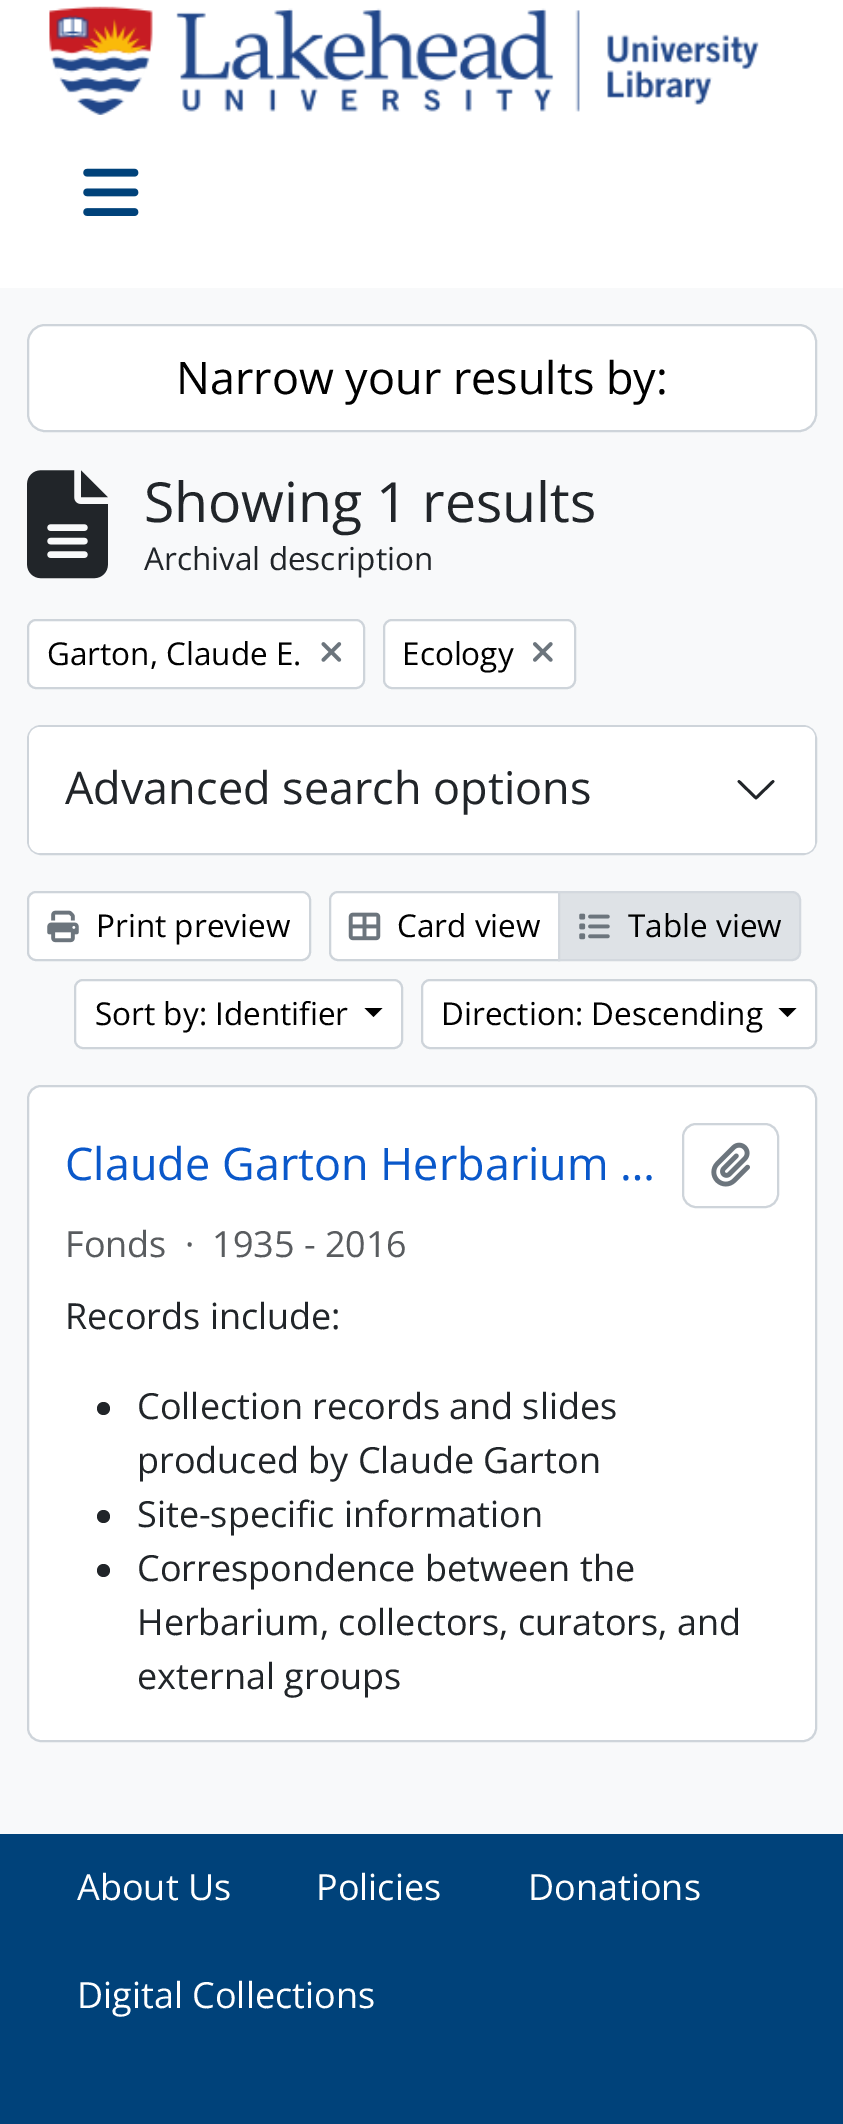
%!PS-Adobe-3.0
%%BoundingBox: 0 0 843 2124
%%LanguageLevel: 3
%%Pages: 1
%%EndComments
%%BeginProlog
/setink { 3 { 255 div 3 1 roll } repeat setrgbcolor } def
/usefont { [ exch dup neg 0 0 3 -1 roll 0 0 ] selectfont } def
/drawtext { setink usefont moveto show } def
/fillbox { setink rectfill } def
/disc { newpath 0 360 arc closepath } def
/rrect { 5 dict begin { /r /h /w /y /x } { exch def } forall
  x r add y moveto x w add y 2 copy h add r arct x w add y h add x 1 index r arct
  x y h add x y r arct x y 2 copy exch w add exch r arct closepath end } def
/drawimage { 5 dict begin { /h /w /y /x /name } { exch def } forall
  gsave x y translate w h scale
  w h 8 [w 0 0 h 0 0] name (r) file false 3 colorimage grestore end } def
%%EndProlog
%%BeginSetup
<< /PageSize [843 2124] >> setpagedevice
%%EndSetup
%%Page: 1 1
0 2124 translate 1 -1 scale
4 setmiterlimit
0 0 843 2124 248 249 250 fillbox
0 0 843 288 255 255 255 fillbox
(assets/img1.rgb) 49 6 710 109 drawimage
(assets/img2.rgb) 83 168 56 48 drawimage
28 325 788 106 17 rrect gsave fill grestore
206 212 218 setink
2 setlinewidth
stroke
(Narrow your results by:) 176 394 /OpenSans-Regular 45 0 0 0 drawtext
(assets/img3.rgb) 27 470 81 109 drawimage
(Showing 1 results) 144 522 /OpenSans-Regular 55.25 33 37 41 drawtext
(Archival description) 144 570 /OpenSans-Regular 31.5 33 37 41 drawtext
255 255 255 setink
28 620 336 68 8 rrect gsave fill grestore
206 212 218 setink
stroke
(Garton, Claude E.) 47 665 /OpenSans-Regular 31.5 0 0 0 drawtext
(assets/img4.rgb) 321 642 21 20 drawimage
255 255 255 setink
384 620 191 68 8 rrect gsave fill grestore
206 212 218 setink
stroke
(Ecology) 402 665 /OpenSans-Regular 31.5 0 0 0 drawtext
(assets/img5.rgb) 533 642 20 20 drawimage
206 212 218 setink
28 726 788 128 13 rrect stroke
255 255 255 setink
29 727 786 126 11 rrect fill
(Advanced search options) 65 804 /OpenSans-Regular 45 33 37 41 drawtext
2.8 setlinewidth
1 setlinecap
1 setlinejoin
739 781.5 moveto 756 798 lineto 773 781.5 lineto stroke
255 255 255 setink
28 892 282 68 8 rrect gsave fill grestore
206 212 218 setink
2 setlinewidth
0 setlinecap
0 setlinejoin
stroke
(assets/img6.rgb) 47 910 32 33 drawimage
(Print preview) 96 937 /OpenSans-Regular 31.5 0 0 0 drawtext
255 255 255 setink
338 892 moveto 559 892 lineto 559 960 lineto 338 960 lineto 333.5 960 330 956.5 330 952 curveto 330 900 lineto 330 895.5 333.5 892 338 892 curveto closepath gsave fill grestore
206 212 218 setink
stroke
(assets/img7.rgb) 348 912 33 29 drawimage
(Card view) 397 937 /OpenSans-Regular 31.5 0 0 0 drawtext
222 226 230 setink
559 892 moveto 792 892 lineto 796.5 892 800 895.5 800 900 curveto 800 952 lineto 800 956.5 796.5 960 792 960 curveto 559 960 lineto closepath gsave fill grestore
211 216 222 setink
stroke
(assets/img8.rgb) 579 913 31 27 drawimage
(Table view) 628 937 /OpenSans-Regular 31.5 0 0 0 drawtext
255 255 255 setink
75 980 327 68 8 rrect gsave fill grestore
206 212 218 setink
stroke
(Sort by: Identifier) 95 1025 /OpenSans-Regular 31.5 0 0 0 drawtext
364.5 1008 moveto 382.5 1008 lineto 373.5 1017 lineto closepath fill
255 255 255 setink
422 980 394 68 8 rrect gsave fill grestore
206 212 218 setink
stroke
(Direction: Descending) 441 1025 /OpenSans-Regular 31.5 0 0 0 drawtext
778.5 1008 moveto 796.5 1008 lineto 787.5 1017 lineto closepath fill
255 255 255 setink
28 1086 788 655 13 rrect gsave fill grestore
206 212 218 setink
stroke
(Claude Garton Herbarium …) 65 1180 /OpenSans-Regular 45 10 88 202 drawtext
206 212 218 setink
683 1124 95 83 13 rrect stroke
(assets/img9.rgb) 711 1142 39 45 drawimage
(Fonds) 65 1257 /OpenSans-Regular 36 89 92 95 drawtext
(·) 185 1257 /OpenSans-Regular 36 89 92 95 drawtext
(1935 - 2016) 212 1257 /OpenSans-Regular 36 89 92 95 drawtext
(Records include:) 65 1329 /OpenSans-Regular 36 33 37 41 drawtext
103.5 1408.5 6.5 disc fill
(Collection records and slides) 137 1419 /OpenSans-Regular 36 33 37 41 drawtext
(produced by Claude Garton) 137 1473 /OpenSans-Regular 36 33 37 41 drawtext
103.5 1516.5 6.5 disc fill
(Site-specific information) 137 1527 /OpenSans-Regular 36 33 37 41 drawtext
103.5 1570.5 6.5 disc fill
(Correspondence between the) 137 1581 /OpenSans-Regular 36 33 37 41 drawtext
(Herbarium, collectors, curators, and) 137 1635 /OpenSans-Regular 36 33 37 41 drawtext
(external groups) 137 1689 /OpenSans-Regular 36 33 37 41 drawtext
0 1834 843 290 0 66 122 fillbox
(About Us) 77 1900 /OpenSans-Regular 36 255 255 255 drawtext
(Policies) 316 1900 /OpenSans-Regular 36 255 255 255 drawtext
(Donations) 528 1900 /OpenSans-Regular 36 255 255 255 drawtext
(Digital Collections) 77 2008 /OpenSans-Regular 36 255 255 255 drawtext
showpage
%%EOF
